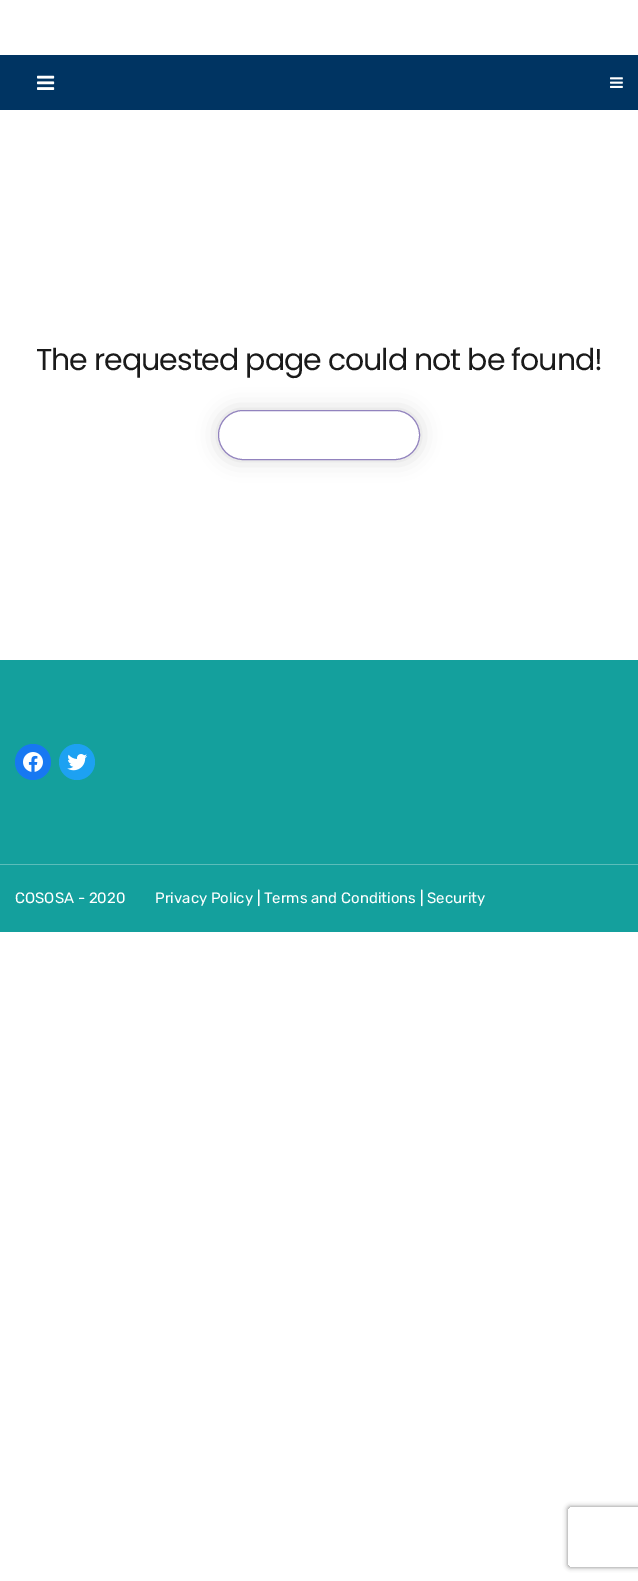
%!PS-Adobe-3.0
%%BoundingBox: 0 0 638 1581
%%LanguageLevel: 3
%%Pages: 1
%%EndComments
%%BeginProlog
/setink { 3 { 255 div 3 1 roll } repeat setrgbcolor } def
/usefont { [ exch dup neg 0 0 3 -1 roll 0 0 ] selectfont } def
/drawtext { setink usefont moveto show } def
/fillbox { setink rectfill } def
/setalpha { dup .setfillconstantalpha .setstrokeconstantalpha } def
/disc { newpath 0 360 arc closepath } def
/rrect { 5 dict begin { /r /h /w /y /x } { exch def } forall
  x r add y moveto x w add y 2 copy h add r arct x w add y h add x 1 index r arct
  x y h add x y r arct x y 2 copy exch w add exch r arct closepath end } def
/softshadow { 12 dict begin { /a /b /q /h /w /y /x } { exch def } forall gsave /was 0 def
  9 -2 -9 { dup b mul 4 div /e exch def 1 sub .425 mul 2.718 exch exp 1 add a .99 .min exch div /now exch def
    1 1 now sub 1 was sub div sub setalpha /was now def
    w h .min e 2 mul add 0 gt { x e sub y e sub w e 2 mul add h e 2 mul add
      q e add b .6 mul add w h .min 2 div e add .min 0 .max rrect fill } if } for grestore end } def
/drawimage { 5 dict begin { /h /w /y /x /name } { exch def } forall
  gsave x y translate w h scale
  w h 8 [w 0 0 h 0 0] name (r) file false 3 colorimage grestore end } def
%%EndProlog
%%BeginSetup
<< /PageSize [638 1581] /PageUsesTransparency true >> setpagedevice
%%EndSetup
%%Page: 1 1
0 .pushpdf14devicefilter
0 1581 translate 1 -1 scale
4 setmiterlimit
0 0 638 1581 255 255 255 fillbox
0 55 638 55 0 52 98 fillbox
(assets/img1.rgb) 37 75 18 15 drawimage
(assets/img2.rgb) 610 77 13 11 drawimage
/Poppins-Regular 30 usefont
26 26 26 setink
36 370 moveto -1 0 (The requested page could not be found!) ashow
gsave
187 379 moveto 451 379 lineto 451 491 lineto 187 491 lineto closepath 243 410 moveto 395 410 lineto 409 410 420 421 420 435 curveto 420 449 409 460 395 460 curveto 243 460 lineto 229 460 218 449 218 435 curveto 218 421 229 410 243 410 curveto closepath eoclip newpath
0 0 0 setink
218 410 202 50 25 10 0.15 softshadow
grestore
146 131 190 setink
218.5 410.5 201 49 24.5 rrect stroke
0 660 638 272 20 160 157 fillbox
0 864 638 1 91 189 186 fillbox
23 120 242 setink
33 762 18 disc fill
(assets/img3.rgb) 23 752 20 20 drawimage
29 161 242 setink
77 762 18 disc fill
(assets/img4.rgb) 67 754 20 17 drawimage
(COSOSA - 2020) 15 903 /Rubik-Regular 15 255 255 255 drawtext
(Privacy Policy | Terms and Conditions | Security) 155 903 /Rubik-Regular 15 255 255 255 drawtext
gsave
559 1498 moveto 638 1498 lineto 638 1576 lineto 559 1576 lineto closepath 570 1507 moveto 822 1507 lineto 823 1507 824 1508 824 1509 curveto 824 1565 lineto 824 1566 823 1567 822 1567 curveto 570 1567 lineto 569 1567 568 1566 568 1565 curveto 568 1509 lineto 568 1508 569 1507 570 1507 curveto closepath eoclip newpath
128 128 128 setink
568 1507 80 60 2 2.5 1 softshadow
grestore
.poppdf14devicefilter showpage
%%EOF
